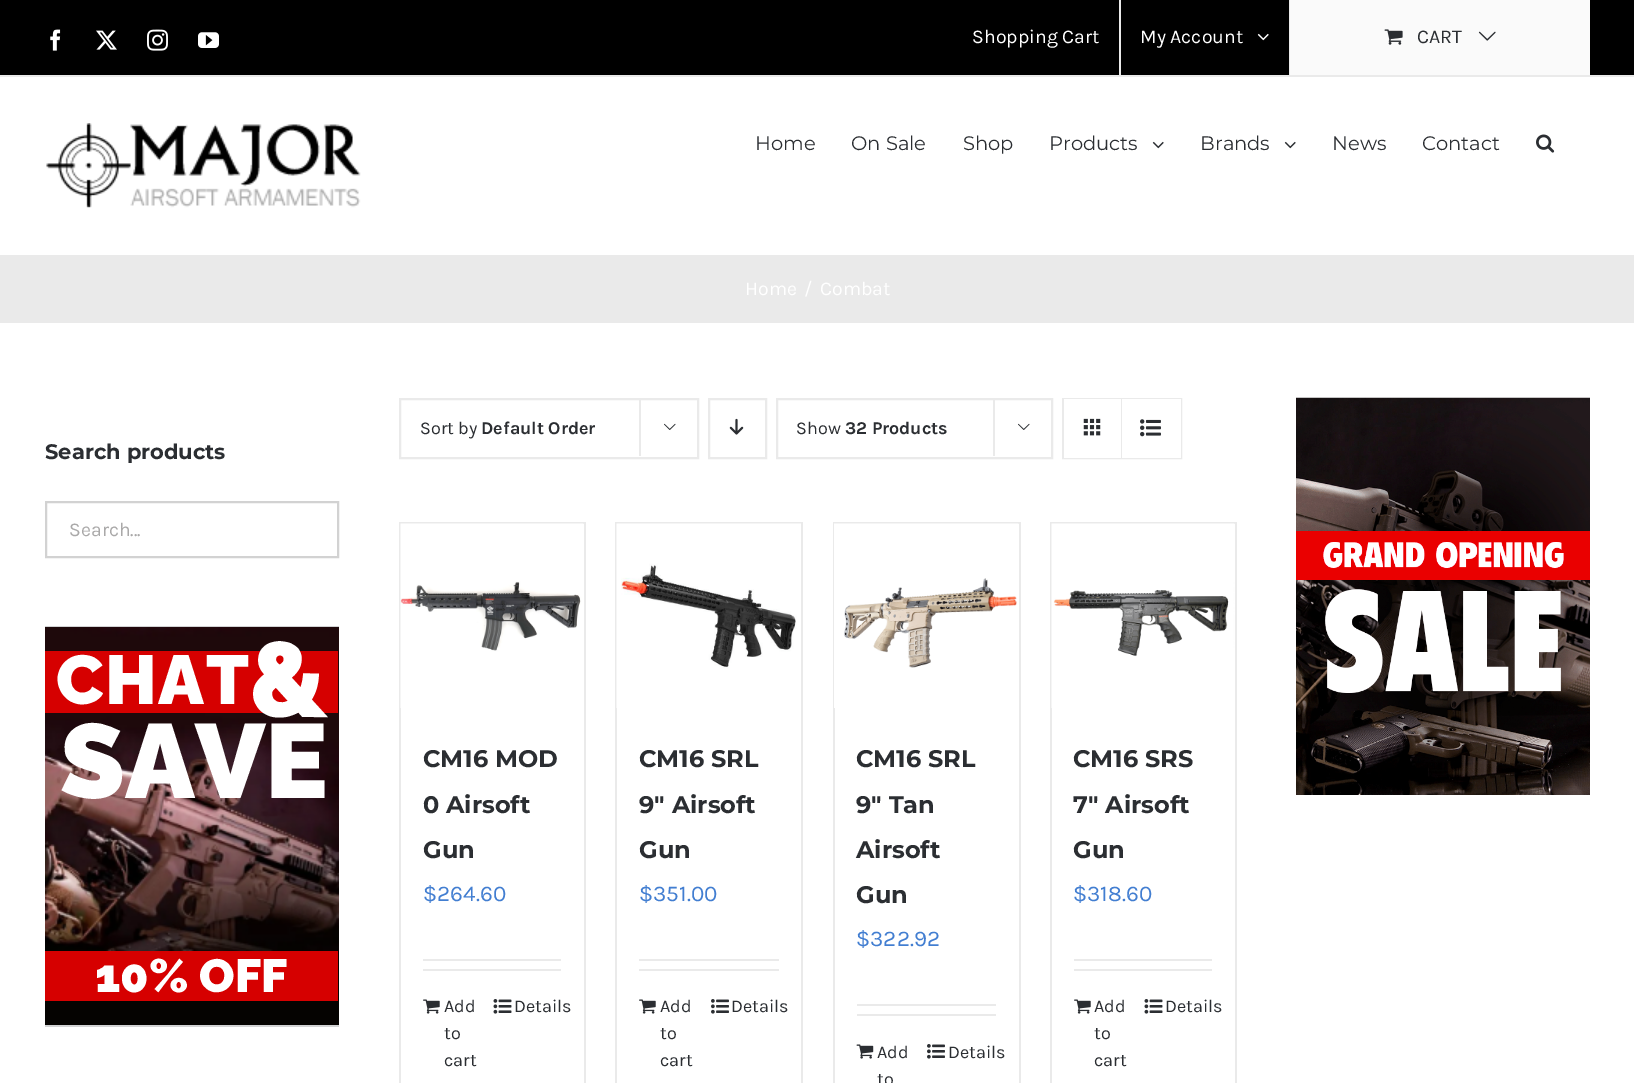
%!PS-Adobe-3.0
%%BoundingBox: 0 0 1634 1083
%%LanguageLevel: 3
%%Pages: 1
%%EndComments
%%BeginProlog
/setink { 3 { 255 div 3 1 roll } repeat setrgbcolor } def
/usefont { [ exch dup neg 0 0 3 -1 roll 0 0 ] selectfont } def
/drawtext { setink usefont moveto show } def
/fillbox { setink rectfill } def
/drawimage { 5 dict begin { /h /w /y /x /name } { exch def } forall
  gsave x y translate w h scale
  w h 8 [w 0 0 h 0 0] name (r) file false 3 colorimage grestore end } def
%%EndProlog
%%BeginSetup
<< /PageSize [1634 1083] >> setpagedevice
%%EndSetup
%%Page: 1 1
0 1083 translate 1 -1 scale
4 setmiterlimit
0 0 1634 1083 255 255 255 fillbox
0 0 1634 75 0 0 0 fillbox
0 75 1634 2 234 234 234 fillbox
(assets/img1.rgb) 50 29 11 22 drawimage
(assets/img2.rgb) 96 30 21 20 drawimage
(assets/img3.rgb) 147 29 21 22 drawimage
(assets/img4.rgb) 198 32 21 16 drawimage
(Shopping Cart) 972 43 /Karla-Regular 19.5 255 255 255 drawtext
1119 0 2 75 234 234 234 fillbox
(My Account) 1140 43 /Karla-Regular 19.5 255 255 255 drawtext
(assets/img5.rgb) 1257 33 12 8 drawimage
1289 0 1 75 234 234 234 fillbox
1290 0 300 75 250 250 250 fillbox
(assets/img6.rgb) 1384 29 19 16 drawimage
(CART) 1417 43 /Karla-Regular 19.5 43 46 50 drawtext
(assets/img7.rgb) 1478 31 18 10 drawimage
(assets/img8.rgb) 46 123 315 85 drawimage
(Home) 755 150 /Montserrat-Regular 19.5 43 46 50 drawtext
(On Sale) 851 150 /Montserrat-Regular 19.5 43 46 50 drawtext
(Shop) 963 150 /Montserrat-Regular 19.5 43 46 50 drawtext
(Products) 1049 150 /Montserrat-Regular 19.5 43 46 50 drawtext
(assets/img9.rgb) 1152 141 12 8 drawimage
(Brands) 1200 150 /Montserrat-Regular 19.5 43 46 50 drawtext
(assets/img9.rgb) 1284 141 12 8 drawimage
(News) 1332 150 /Montserrat-Regular 19.5 43 46 50 drawtext
(Contact) 1422 150 /Montserrat-Regular 19.5 43 46 50 drawtext
(assets/img10.rgb) 1536 134 19 19 drawimage
0 255 1634 68 234 234 234 fillbox
(Home) 745 295 /Karla-Regular 19.5 255 255 255 drawtext
(/) 804 295 /Karla-Regular 19.5 255 255 255 drawtext
(Combat) 820 295 /Karla-Regular 19.5 255 255 255 drawtext
(Search products) 45 459 /Montserrat-Bold 21 43 46 50 drawtext
210 210 210 setink
2 setlinewidth
46 502 292 55 rectstroke
(Search...) 69 536 /Karla-Regular 19.5 170 169 169 drawtext
45 626 294 1 210 211 212 fillbox
45 1025 294 2 210 211 212 fillbox
(assets/img11.rgb) 45 627 294 398 drawimage
45 651 293 62 214 0 0 fillbox
/Raleway-Thin 105 usefont
255 255 255 setink
gsave 249 716 translate 1 rotate 0 0 moveto (&) show grestore
/Raleway-Thin 69 usefont
56 704 moveto 1.5 0 (CHAT) ashow
(SAVE) 60 798 /Raleway-Thin 105 255 255 255 drawtext
45 951 293 50 214 0 0 fillbox
(10% OFF) 95 992 /Raleway-Thin 46.5 255 255 255 drawtext
234 234 234 setink
400 399 298 59 rectstroke
(Sort by) 420 434 /Karla-Regular 18 43 46 50 drawtext
(Default Order) 481 434 /Karla-Bold 18 43 46 50 drawtext
639 398 2 58 234 234 234 fillbox
(assets/img12.rgb) 664 423 12 7 drawimage
709 399 57 59 rectstroke
(assets/img13.rgb) 729 418 15 17 drawimage
777 399 275 59 rectstroke
(Show) 796 434 /Karla-Regular 18 43 46 50 drawtext
(32 Products) 845 434 /Karla-Bold 18 43 46 50 drawtext
993 398 2 58 234 234 234 fillbox
(assets/img12.rgb) 1018 423 12 7 drawimage
1063 399 118 59 rectstroke
1064 399 57 59 255 255 255 fillbox
1121 399 1 59 234 234 234 fillbox
(assets/img14.rgb) 1083 418 18 18 drawimage
1122 399 59 59 255 255 255 fillbox
(assets/img15.rgb) 1140 419 21 18 drawimage
399 522 186 2 234 234 234 fillbox
584 522 2 561 234 234 234 fillbox
399 522 2 561 234 234 234 fillbox
(assets/img16.rgb) 400 523 184 185 drawimage
(CM16 MOD) 423 767 /Montserrat-Bold 24 43 46 50 drawtext
(0 Airsoft) 423 813 /Montserrat-Bold 24 43 46 50 drawtext
(Gun) 423 858 /Montserrat-Bold 24 43 46 50 drawtext
($264.60) 423 901 /Karla-Regular 22.5 66 126 209 drawtext
423 959 138 2 234 234 234 fillbox
423 969 138 2 234 234 234 fillbox
(assets/img17.rgb) 423 999 17 15 drawimage
(Add) 444 1012 /Karla-Regular 18 43 46 50 drawtext
(to) 444 1039 /Karla-Regular 18 43 46 50 drawtext
(cart) 444 1066 /Karla-Regular 18 43 46 50 drawtext
(assets/img18.rgb) 493 999 19 15 drawimage
(Details) 514 1012 /Karla-Regular 18 43 46 50 drawtext
615 522 188 2 234 234 234 fillbox
801 522 2 561 234 234 234 fillbox
615 522 2 561 234 234 234 fillbox
(assets/img19.rgb) 616 523 185 185 drawimage
(CM16 SRL) 639 767 /Montserrat-Bold 24 43 46 50 drawtext
(9″ Airsoft) 639 813 /Montserrat-Bold 24 43 46 50 drawtext
(Gun) 639 858 /Montserrat-Bold 24 43 46 50 drawtext
($351.00) 639 901 /Karla-Regular 22.5 66 126 209 drawtext
639 959 140 2 234 234 234 fillbox
639 969 140 2 234 234 234 fillbox
(assets/img17.rgb) 639 999 17 15 drawimage
(Add) 660 1012 /Karla-Regular 18 43 46 50 drawtext
(to) 660 1039 /Karla-Regular 18 43 46 50 drawtext
(cart) 660 1066 /Karla-Regular 18 43 46 50 drawtext
(assets/img20.rgb) 711 999 18 15 drawimage
(Details) 731 1012 /Karla-Regular 18 43 46 50 drawtext
833 522 187 2 234 234 234 fillbox
1019 522 2 561 234 234 234 fillbox
833 522 2 561 234 234 234 fillbox
(assets/img21.rgb) 834 523 185 185 drawimage
(CM16 SRL) 856 767 /Montserrat-Bold 24 43 46 50 drawtext
(9″ Tan) 856 813 /Montserrat-Bold 24 43 46 50 drawtext
(Airsoft) 856 858 /Montserrat-Bold 24 43 46 50 drawtext
(Gun) 856 903 /Montserrat-Bold 24 43 46 50 drawtext
($322.92) 856 946 /Karla-Regular 22.5 66 126 209 drawtext
857 1004 139 2 234 234 234 fillbox
857 1014 139 2 234 234 234 fillbox
(assets/img22.rgb) 856 1044 18 15 drawimage
(Add) 877 1058 /Karla-Regular 18 43 46 50 drawtext
(to) 877 1085 /Karla-Regular 18 43 46 50 drawtext
(assets/img20.rgb) 927 1044 18 15 drawimage
(Details) 948 1058 /Karla-Regular 18 43 46 50 drawtext
1050 522 186 2 234 234 234 fillbox
1235 522 2 561 234 234 234 fillbox
1050 522 2 561 234 234 234 fillbox
(assets/img23.rgb) 1051 523 184 185 drawimage
(CM16 SRS) 1073 767 /Montserrat-Bold 24 43 46 50 drawtext
(7″ Airsoft) 1073 813 /Montserrat-Bold 24 43 46 50 drawtext
(Gun) 1073 858 /Montserrat-Bold 24 43 46 50 drawtext
($318.60) 1073 901 /Karla-Regular 22.5 66 126 209 drawtext
1074 959 138 2 234 234 234 fillbox
1074 969 138 2 234 234 234 fillbox
(assets/img17.rgb) 1074 999 17 15 drawimage
(Add) 1094 1012 /Karla-Regular 18 43 46 50 drawtext
(to) 1094 1039 /Karla-Regular 18 43 46 50 drawtext
(cart) 1094 1066 /Karla-Regular 18 43 46 50 drawtext
(assets/img18.rgb) 1144 999 19 15 drawimage
(Details) 1165 1012 /Karla-Regular 18 43 46 50 drawtext
(assets/img24.rgb) 1296 397 294 398 drawimage
showpage
%%EOF
